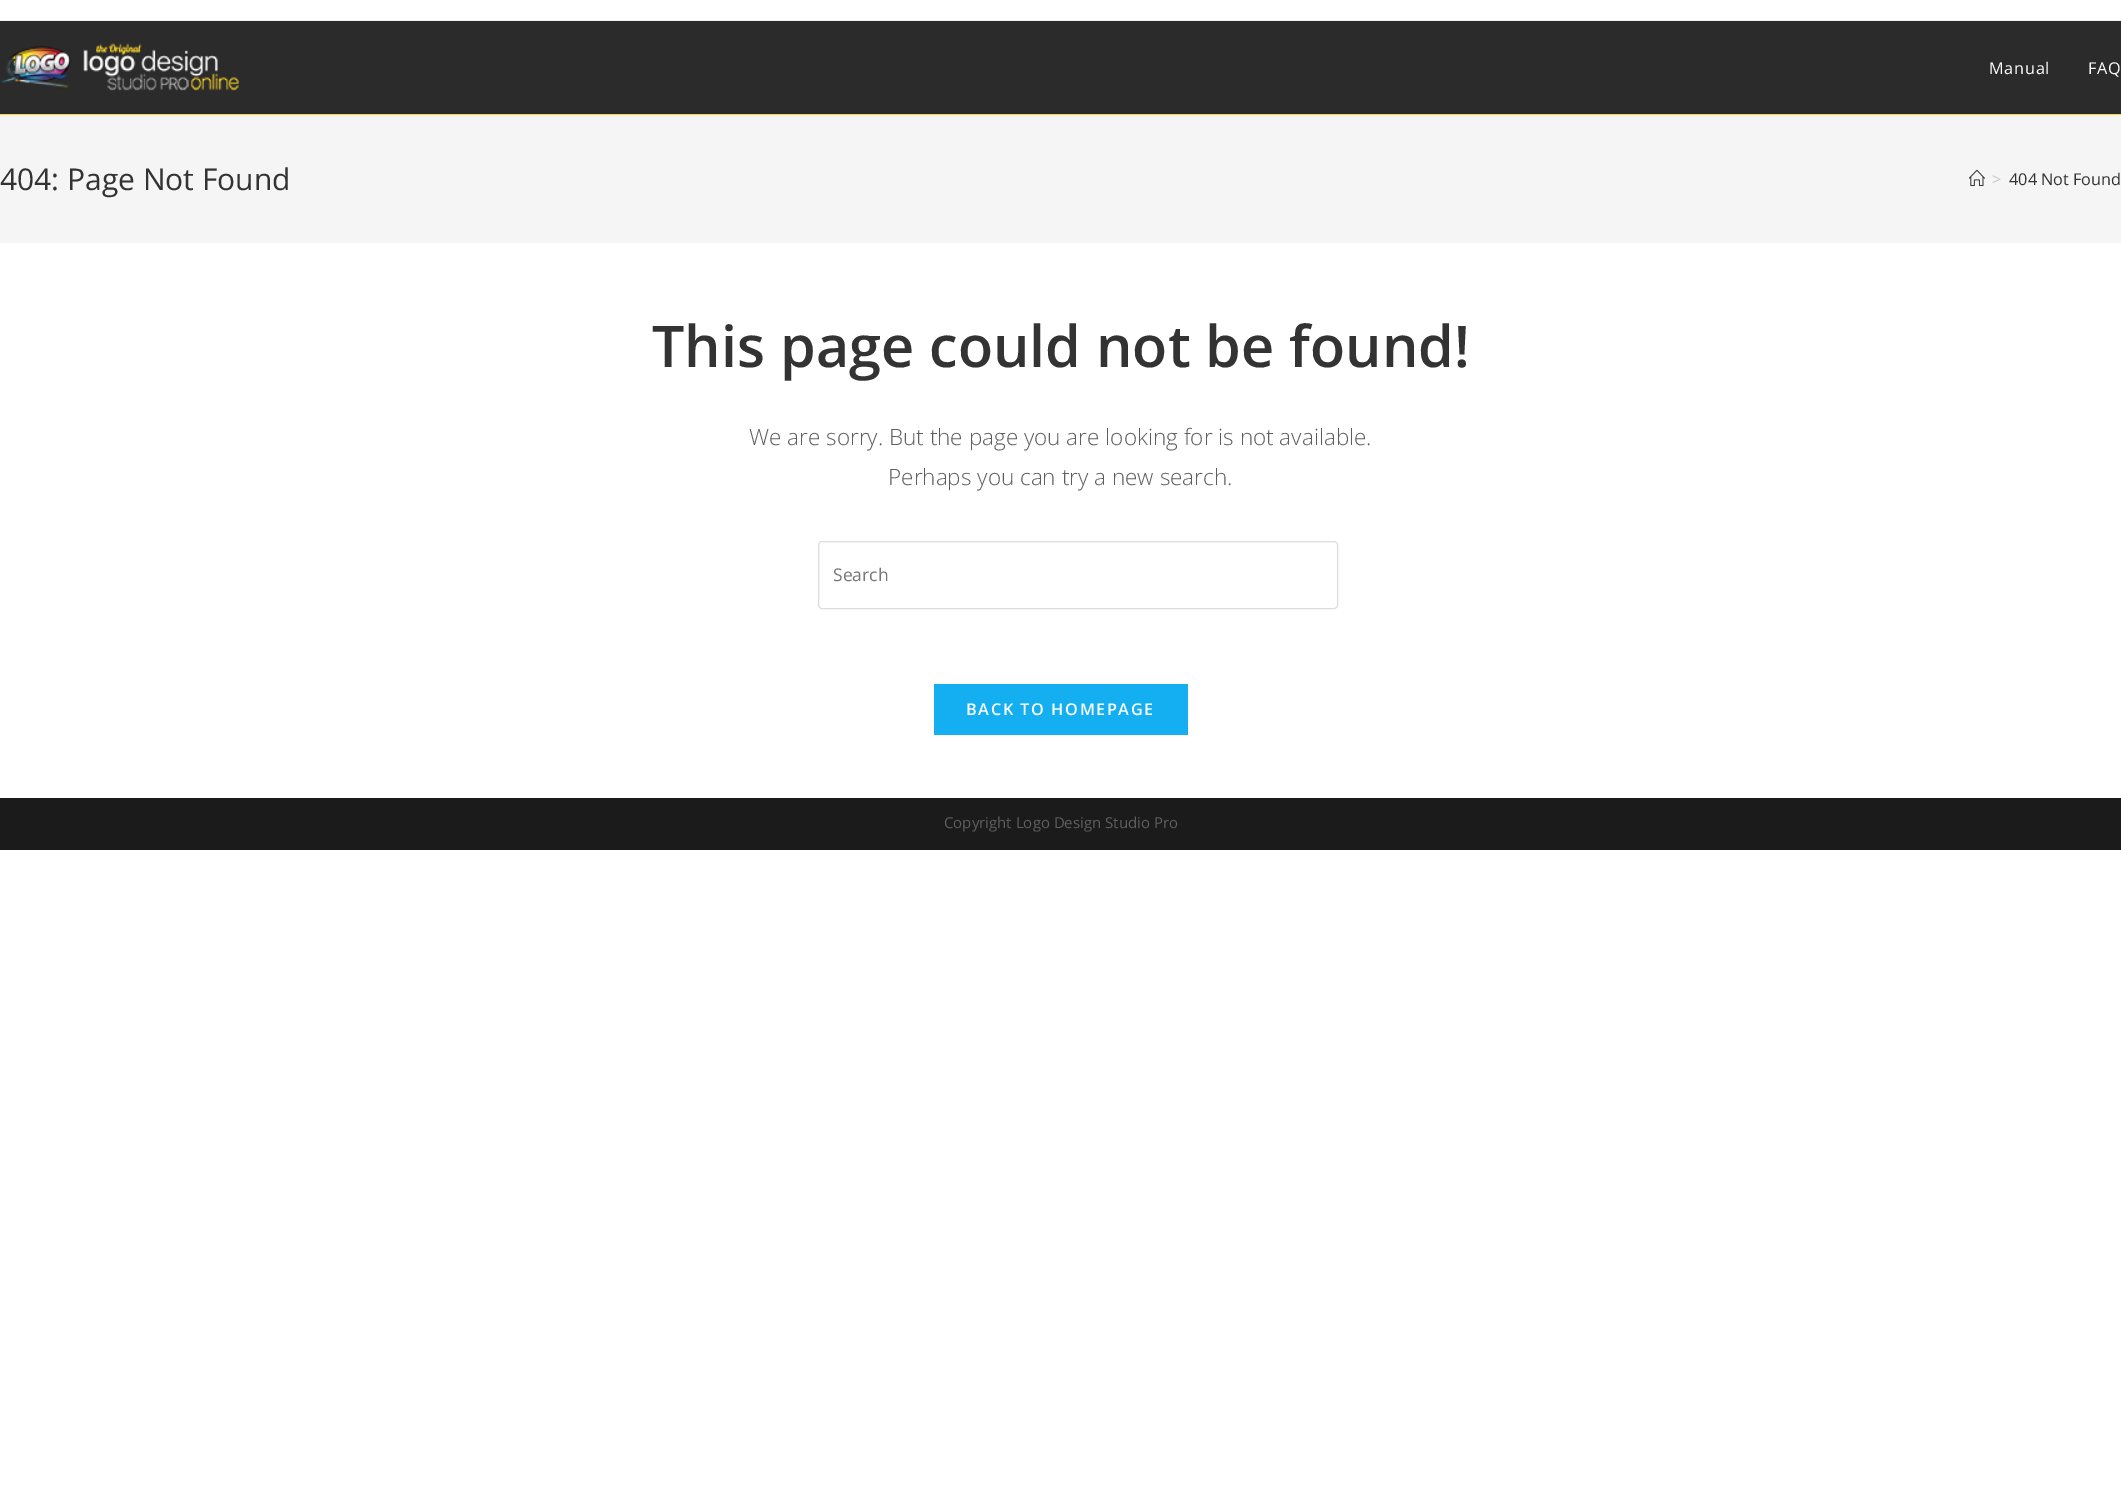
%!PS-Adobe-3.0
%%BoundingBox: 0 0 2121 1512
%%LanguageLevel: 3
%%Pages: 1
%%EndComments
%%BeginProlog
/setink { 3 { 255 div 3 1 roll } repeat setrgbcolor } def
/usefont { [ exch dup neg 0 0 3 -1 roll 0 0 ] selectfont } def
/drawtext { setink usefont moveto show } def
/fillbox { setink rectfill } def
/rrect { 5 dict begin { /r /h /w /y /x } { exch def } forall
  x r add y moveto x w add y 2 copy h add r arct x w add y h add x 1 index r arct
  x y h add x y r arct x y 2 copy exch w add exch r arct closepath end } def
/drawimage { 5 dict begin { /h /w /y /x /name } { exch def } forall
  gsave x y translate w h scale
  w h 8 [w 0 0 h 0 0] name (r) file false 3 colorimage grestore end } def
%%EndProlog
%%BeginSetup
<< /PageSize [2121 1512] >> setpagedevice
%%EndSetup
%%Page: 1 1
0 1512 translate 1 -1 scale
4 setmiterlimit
0 0 2121 1512 255 255 255 fillbox
0 20 2121 1 241 241 241 fillbox
0 21 2121 93 43 43 43 fillbox
(assets/img1.rgb) 1 43 238 48 drawimage
0 114 2121 1 254 217 41 fillbox
/OpenSans-Regular 16.25 usefont
255 255 255 setink
1989 74 moveto 0.75 0 (Manual) ashow
2088 74 moveto 0.75 0 (FAQ) ashow
0 115 2121 128 245 245 245 fillbox
(404: Page Not Found) 0 190 /OpenSans-Regular 30 51 51 51 drawtext
(assets/img2.rgb) 1969 169 16 17 drawimage
(>) 1992 185 /OpenSans-Regular 16.25 198 198 198 drawtext
(404 Not Found) 2009 185 /OpenSans-Regular 16.25 51 51 51 drawtext
(This page could not be found!) 652 367 /OpenSans-SemiBold 57.5 51 51 51 drawtext
(We are sorry. But the page you are looking for is not available.) 749 445 /OpenSans-Light 22.5 94 94 94 drawtext
(Perhaps you can try a new search.) 888 485 /OpenSans-Light 22.5 94 94 94 drawtext
221 221 221 setink
818.5 541.5 519 67 3.5 rrect stroke
(Search) 833 581 /OpenSans-Regular 17.5 117 117 117 drawtext
934 684 254 51 19 175 240 fillbox
/OpenSans-SemiBold 16.25 usefont
255 255 255 setink
966 715 moveto 1.6 0 (BACK TO HOMEPAGE) ashow
0 798 2121 52 27 27 27 fillbox
(Copyright Logo Design Studio Pro) 944 828 /OpenSans-Regular 15 94 94 94 drawtext
showpage
%%EOF
